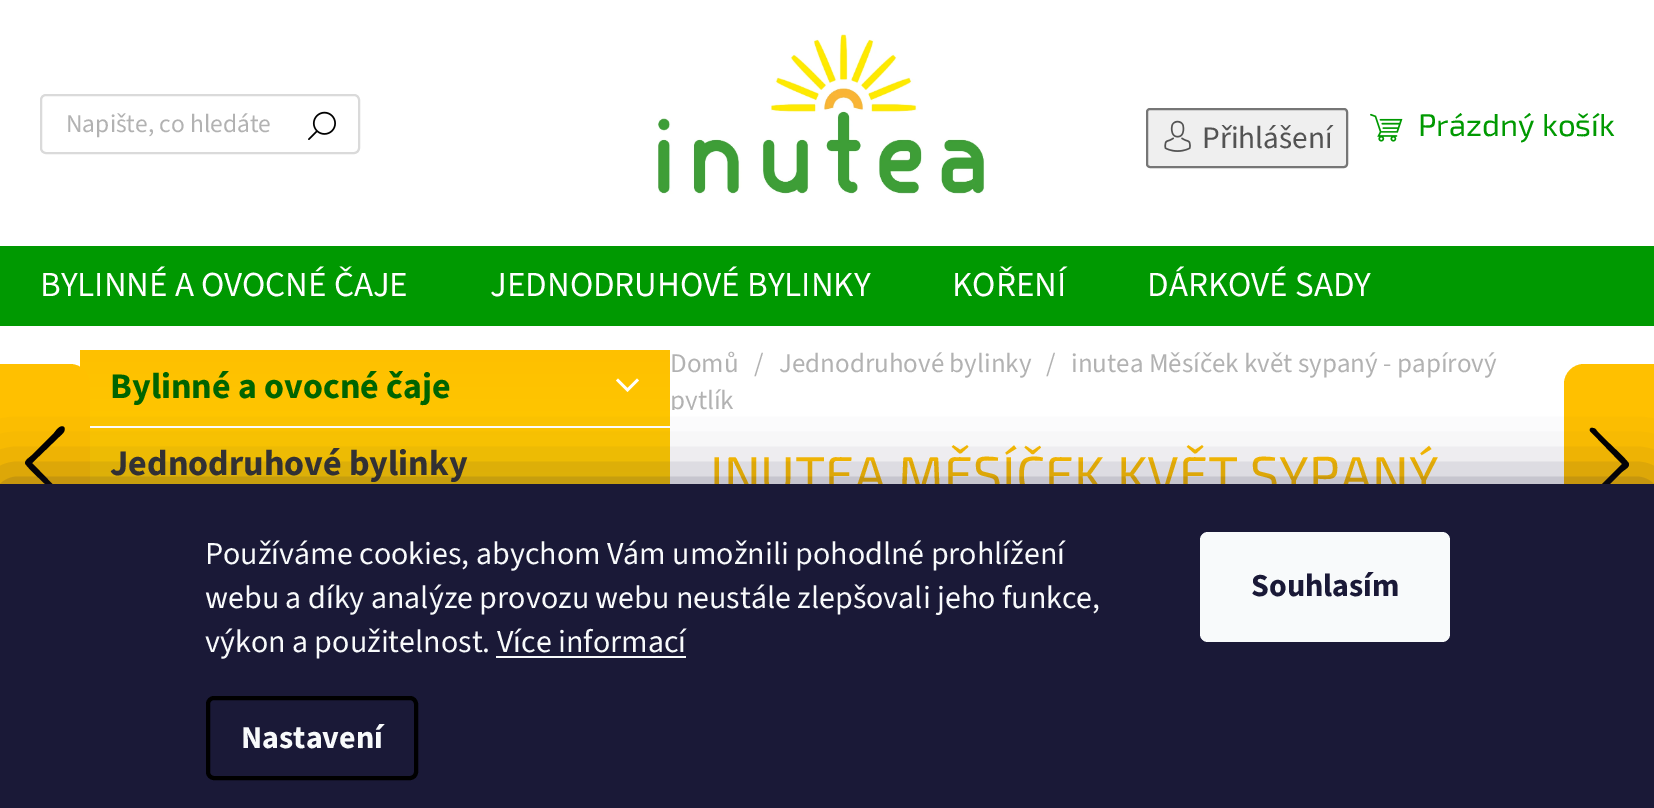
%!PS-Adobe-3.0
%%BoundingBox: 0 0 1654 808
%%LanguageLevel: 3
%%Pages: 1
%%EndComments
%%BeginProlog
/setink { 3 { 255 div 3 1 roll } repeat setrgbcolor } def
/usefont { [ exch dup neg 0 0 3 -1 roll 0 0 ] selectfont } def
/drawtext { setink usefont moveto show } def
/fillbox { setink rectfill } def
/setalpha { dup .setfillconstantalpha .setstrokeconstantalpha } def
/rrect { 5 dict begin { /r /h /w /y /x } { exch def } forall
  x r add y moveto x w add y 2 copy h add r arct x w add y h add x 1 index r arct
  x y h add x y r arct x y 2 copy exch w add exch r arct closepath end } def
/softshadow { 12 dict begin { /a /b /q /h /w /y /x } { exch def } forall gsave /was 0 def
  9 -2 -9 { dup b mul 4 div /e exch def 1 sub .425 mul 2.718 exch exp 1 add a .99 .min exch div /now exch def
    1 1 now sub 1 was sub div sub setalpha /was now def
    w h .min e 2 mul add 0 gt { x e sub y e sub w e 2 mul add h e 2 mul add
      q e add b .6 mul add w h .min 2 div e add .min 0 .max rrect fill } if } for grestore end } def
/drawimage { 5 dict begin { /h /w /y /x /name } { exch def } forall
  gsave x y translate w h scale
  w h 8 [w 0 0 h 0 0] name (r) file false 3 colorimage grestore end } def
%%EndProlog
%%BeginSetup
<< /PageSize [1654 808] /PageUsesTransparency true >> setpagedevice
%%EndSetup
%%Page: 1 1
0 .pushpdf14devicefilter
0 808 translate 1 -1 scale
4 setmiterlimit
0 0 1654 808 255 255 255 fillbox
0 246 1654 80 0 153 1 fillbox
218 218 218 setink
2 setlinewidth
41 95 318 58 5 rrect stroke
(Napište, co hledáte) 66 132 /SourceSans3-Regular 25.5 178 178 178 drawtext
(assets/img1.rgb) 308 111 28 29 drawimage
(assets/img2.rgb) 658 34 327 160 drawimage
(assets/img3.rgb) 1370 113 33 29 drawimage
(Prázdný košík) 1418 136 /Exo2-Regular 31.25 0 153 1 drawtext
(BYLINNÉ A OVOCNÉ ČAJE) 40 296 /SourceSans3-Regular 35.1 255 255 255 drawtext
(JEDNODRUHOVÉ BYLINKY) 490 296 /SourceSans3-Regular 35.1 255 255 255 drawtext
(KOŘENÍ) 952 296 /SourceSans3-Regular 35.1 255 255 255 drawtext
(DÁRKOVÉ SADY) 1147 296 /SourceSans3-Regular 35.1 255 255 255 drawtext
239 239 239 setink
1147 109 200 58 3 rrect gsave fill grestore
118 118 118 setink
stroke
(assets/img4.rgb) 1164 120 27 32 drawimage
(Přihlášení) 1202 148 /SourceSans3-Regular 31.25 83 83 83 drawtext
gsave 80 350 moveto 670 350 lineto 670 484 lineto 80 484 lineto closepath clip newpath
<< /ShadingType 2 /ColorSpace /DeviceRGB /Coords [375 350 375 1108] /Extend [true true] /Function << /FunctionType 2 /Domain [0 1] /C0 [1 0.753 0] /C1 [0.973 1 0] /N 1 >> >> shfill grestore
255 192 0 setink
0 364 moveto 70 364 lineto 81 364 90 373 90 384 curveto 90 544 lineto 90 555 81 564 70 564 curveto 0 564 lineto closepath fill
0 0 0 setink
64 427 moveto 67 431 60 436 59 437 curveto 32 463 lineto 64 496 lineto 65 498 63 500 61 500 curveto 58 499 57 495 54 493 curveto 51 489 25 466 25 463 curveto 25 460 29 458 32 455 curveto 54 433 lineto 55 432 60 424 64 427 curveto closepath eofill
(Domů) 670 372 /SourceSans3-Regular 27 178 178 178 drawtext
(/) 754 372 /SourceSans3-Regular 27 178 178 178 drawtext
(Jednodruhové bylinky) 779 372 /SourceSans3-Regular 27 178 178 178 drawtext
(/) 1046 372 /SourceSans3-Regular 27 178 178 178 drawtext
(inutea Měsíček květ sypaný - papírový) 1071 372 /SourceSans3-Regular 27 178 178 178 drawtext
gsave
670 346 864 64 rectclip
(pytlík) 670 409 /SourceSans3-Regular 27 178 178 178 drawtext
grestore
255 192 0 setink
1654 564 moveto 1584 564 lineto 1573 564 1564 555 1564 544 curveto 1564 384 lineto 1564 373 1573 364 1584 364 curveto 1654 364 lineto closepath fill
0 0 0 setink
1590 500 moveto 1587 497 1594 492 1595 491 curveto 1622 464 lineto 1590 431 lineto 1589 429 1591 427 1593 428 curveto 1596 428 1597 432 1600 434 curveto 1603 438 1629 461 1629 464 curveto 1629 468 1625 469 1622 472 curveto 1600 494 lineto 1599 495 1594 503 1590 500 curveto closepath eofill
90 426 580 2 255 255 255 fillbox
(Bylinné a ovocné čaje) 110 398 /SourceSans3-Bold 36 0 100 0 drawtext
255 255 255 setink
616 380.5 moveto 618 378.5 lineto 627.5 388 lineto 637 378.5 lineto 639 380.5 lineto 627.5 392 lineto closepath fill
(Jednodruhové bylinky) 110 475 /SourceSans3-Bold 36 52 52 52 drawtext
(INUTEA MĚSÍČEK KVĚT SYPANÝ) 710 493 /Exo2-Regular 52 255 192 0 drawtext
27 25 57 setink
0 484 1654 324 0 30 0.5 softshadow
0 484 1654 324 26 25 55 fillbox
(Používáme cookies, abychom Vám umožnili pohodlné prohlížení) 205 564 /SourceSans3-Regular 32 248 250 251 drawtext
(webu a díky analýze provozu webu neustále zlepšovali jeho funkce,) 205 608 /SourceSans3-Regular 32 248 250 251 drawtext
(výkon a použitelnost. Více informací) 205 652 /SourceSans3-Regular 32 248 250 251 drawtext
496 656 190 2 248 250 251 fillbox
0 0 0 setink
4 setlinewidth
208 698 208 80 6 rrect stroke
(Nastavení) 241 748 /SourceSans3-Bold 32 248 250 251 drawtext
1200 532 250 110 8 rrect fill
(Souhlasím) 1251 596 /SourceSans3-Bold 32 26 25 55 drawtext
.poppdf14devicefilter showpage
%%EOF
